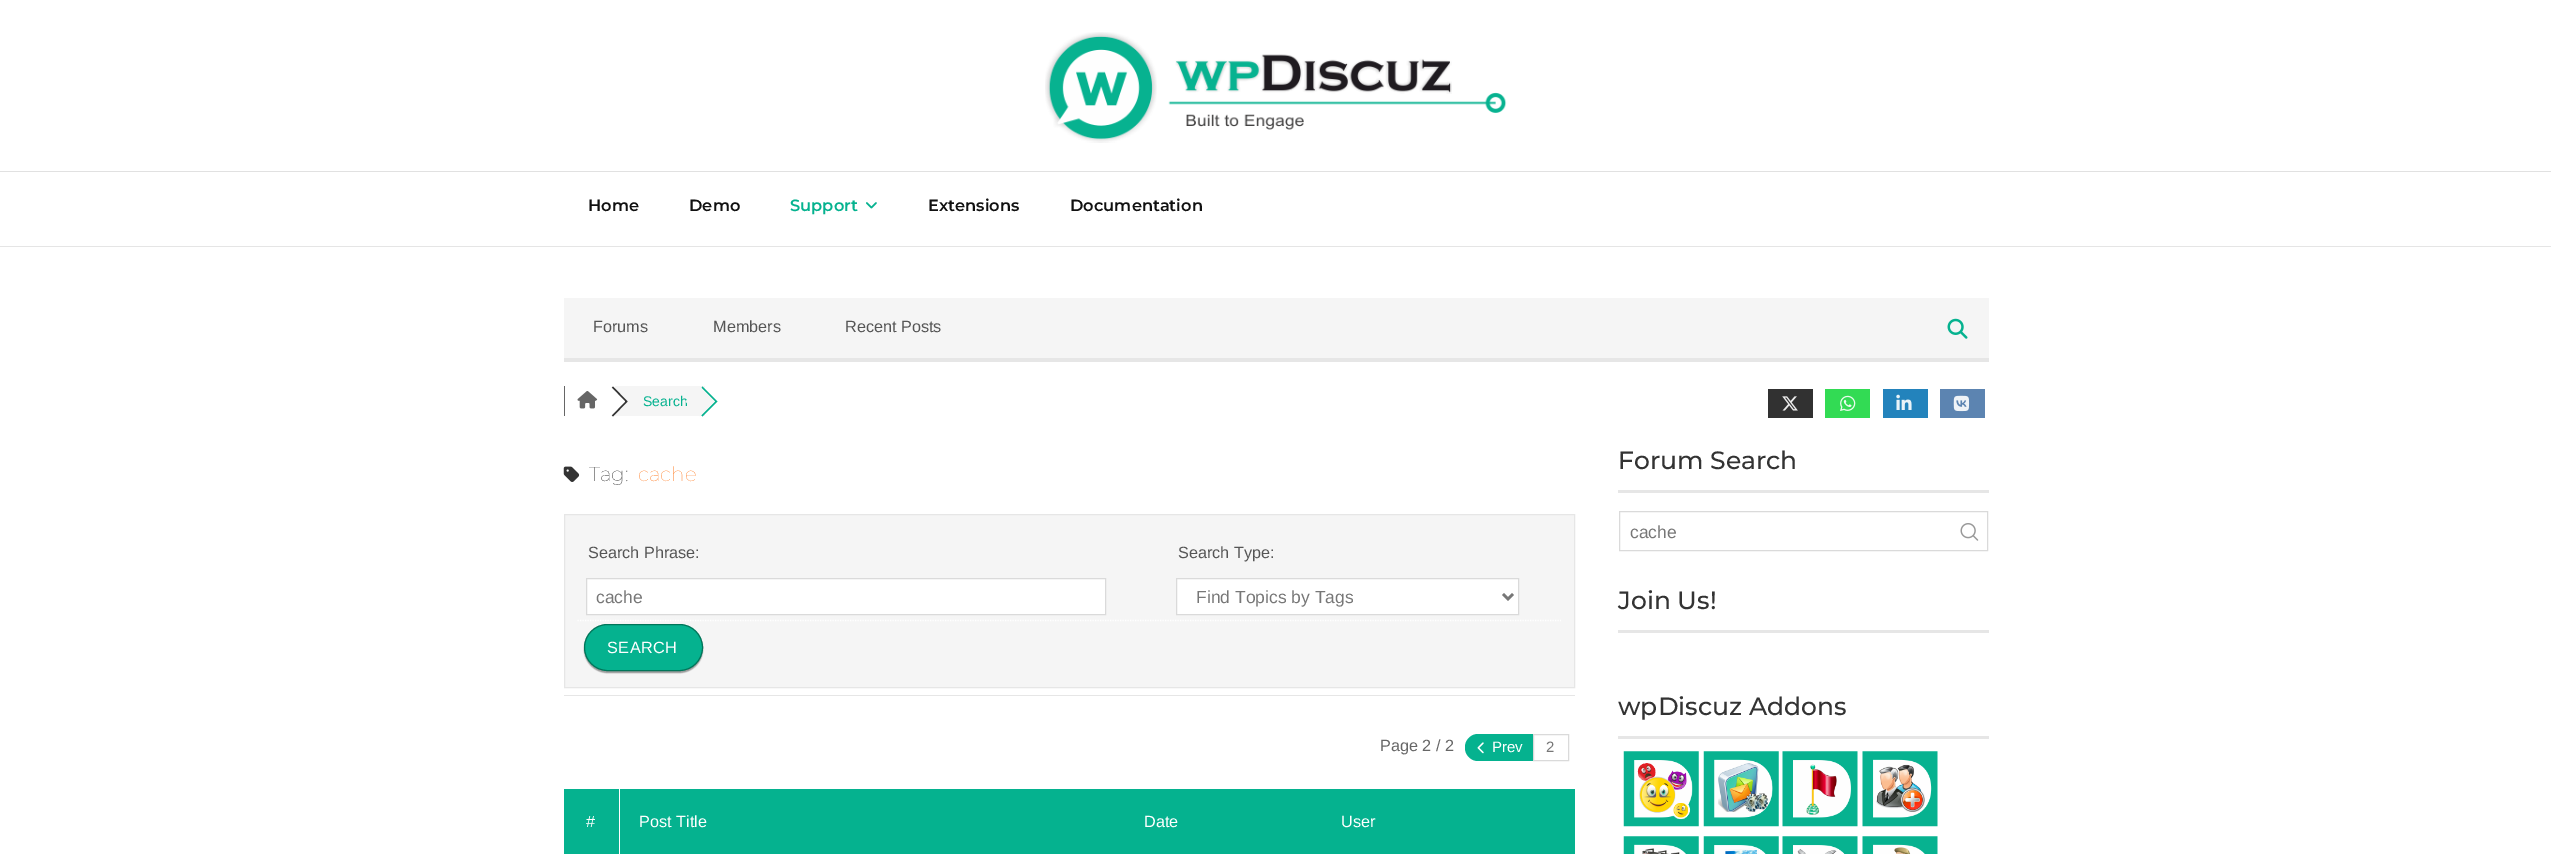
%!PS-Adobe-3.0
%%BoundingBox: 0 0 2551 854
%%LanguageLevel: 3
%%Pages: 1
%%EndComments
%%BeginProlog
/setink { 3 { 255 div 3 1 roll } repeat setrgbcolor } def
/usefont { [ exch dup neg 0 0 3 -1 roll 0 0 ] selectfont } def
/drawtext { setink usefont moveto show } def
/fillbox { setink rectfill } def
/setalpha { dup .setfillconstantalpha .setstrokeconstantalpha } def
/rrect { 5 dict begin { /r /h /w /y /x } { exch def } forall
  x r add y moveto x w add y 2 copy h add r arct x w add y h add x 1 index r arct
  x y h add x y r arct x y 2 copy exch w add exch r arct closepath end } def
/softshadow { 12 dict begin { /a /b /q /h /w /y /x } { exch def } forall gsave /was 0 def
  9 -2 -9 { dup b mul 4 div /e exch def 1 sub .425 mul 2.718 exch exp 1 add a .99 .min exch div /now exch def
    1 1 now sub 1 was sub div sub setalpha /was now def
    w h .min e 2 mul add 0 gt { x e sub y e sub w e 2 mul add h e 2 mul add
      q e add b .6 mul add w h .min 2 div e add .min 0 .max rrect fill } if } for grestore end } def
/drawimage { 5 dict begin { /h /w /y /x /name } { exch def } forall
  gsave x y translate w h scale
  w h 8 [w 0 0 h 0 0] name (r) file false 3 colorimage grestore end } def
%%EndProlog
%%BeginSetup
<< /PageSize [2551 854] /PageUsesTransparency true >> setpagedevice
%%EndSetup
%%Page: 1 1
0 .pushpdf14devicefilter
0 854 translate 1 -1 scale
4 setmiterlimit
0 0 2551 854 255 255 255 fillbox
0 246 2551 1 229 229 229 fillbox
(assets/img1.rgb) 1045 32 462 111 drawimage
0 171 2551 1 225 225 225 fillbox
(Home) 588 211 /Montserrat-SemiBold 16.25 17 17 17 drawtext
(Demo) 689 211 /Montserrat-SemiBold 16.25 17 17 17 drawtext
(Support) 790 211 /Montserrat-SemiBold 16.25 5 178 143 drawtext
(assets/img2.rgb) 866 202 11 7 drawimage
(Extensions) 928 211 /Montserrat-SemiBold 16.25 17 17 17 drawtext
(Documentation) 1070 211 /Montserrat-SemiBold 16.25 17 17 17 drawtext
564 298 1425 60 245 245 245 fillbox
564 358 1425 4 230 230 230 fillbox
(Forums) 593 332 /LiberationSans-Regular 16.25 85 85 85 drawtext
(Members) 713 332 /LiberationSans-Regular 16.25 85 85 85 drawtext
(Recent Posts) 845 332 /LiberationSans-Regular 16.25 85 85 85 drawtext
(assets/img3.rgb) 1947 318 21 21 drawimage
564 386 1 30 102 102 102 fillbox
(assets/img4.rgb) 577 391 21 18 drawimage
615 386 90 30 245 245 245 fillbox
51 51 51 setink
613 386.5 moveto 611.5 388 lineto 625 401.5 lineto 611.5 415 lineto 613 416.5 lineto 627.5 401.5 lineto closepath fill
255 255 255 setink
610.5 386.5 moveto 625 401.5 lineto 610.5 416.5 lineto 595.5 401.5 lineto closepath fill
(Search) 643 406 /LiberationSans-Regular 14 5 178 143 drawtext
702.5 386.5 moveto 701.5 388 lineto 715 401.5 lineto 701 415 lineto 702.5 416.5 lineto 717.5 401.5 lineto closepath fill
245 245 245 setink
700 386.5 moveto 715 401.5 lineto 700 416.5 lineto 685.5 401.5 lineto closepath fill
1768 389 45 29 49 49 49 fillbox
(assets/img5.rgb) 1782 396 16 15 drawimage
1825 389 45 29 50 219 84 fillbox
(assets/img6.rgb) 1840 395 16 16 drawimage
1883 389 45 29 35 131 188 fillbox
(assets/img7.rgb) 1896 394 16 16 drawimage
1940 389 45 29 92 132 177 fillbox
(assets/img8.rgb) 1953 395 17 17 drawimage
(assets/img9.rgb) 563 466 17 16 drawimage
(Tag:) 589 481 /Montserrat-Thin 20 51 51 51 drawtext
(cache) 638 481 /Montserrat-Thin 20 255 129 45 drawtext
245 245 245 setink
564.5 514.5 moveto 1574.5 514.5 lineto 1574.5 687.5 lineto 564.5 687.5 lineto closepath gsave fill grestore
230 230 230 setink
stroke
255 255 255 setink
1.2 setlinewidth
[1.25 1.25] 0 setdash
577.5 620.5 moveto 1167.5 620.5 lineto stroke
(Search Phrase:) 588 558 /LiberationSans-Regular 16.25 85 85 85 drawtext
255 255 255 setink
586.5 578.5 moveto 1105.5 578.5 lineto 1105.5 614.5 lineto 586.5 614.5 lineto closepath gsave fill grestore
218 218 218 setink
1 setlinewidth
[] 0 setdash
stroke
(cache) 596 603 /LiberationSans-Regular 17.5 119 119 119 drawtext
255 255 255 setink
1.2 setlinewidth
[1.25 1.25] 0 setdash
1167.5 620.5 moveto 1561 620.5 lineto stroke
(Search Type:) 1178 558 /LiberationSans-Regular 16.25 85 85 85 drawtext
255 255 255 setink
1176.5 578.5 moveto 1518.5 578.5 lineto 1518.5 614.5 lineto 1176.5 614.5 lineto closepath gsave fill grestore
218 218 218 setink
1 setlinewidth
[] 0 setdash
stroke
119 119 119 setink
2.5 setlinewidth
1503 594 moveto 1508 599 lineto 1513 594 lineto stroke
(Find Topics by Tags) 1196 603 /LiberationSans-Regular 17.5 119 119 119 drawtext
153 153 153 setink
584 625 119 48 24 0.5 1 softshadow
5 178 143 setink
584.5 624.5 118 46 23 rrect gsave fill grestore
0 117 89 setink
1 setlinewidth
stroke
/LiberationSans-Regular 16.25 usefont
255 255 255 setink
607 653 moveto 0.5 0 (SEARCH) ashow
564 695 1011 1 230 230 230 fillbox
(Page 2 / 2) 1380 751 /LiberationSans-Regular 16.25 102 102 102 drawtext
5 178 143 setink
1478 734 moveto 1533 734 lineto 1533 761 lineto 1478 761 lineto 1471 761 1465 755 1465 748 curveto 1465 747 lineto 1465 740 1471 734 1478 734 curveto closepath fill
(assets/img10.rgb) 1477 742 7 12 drawimage
(Prev) 1492 752 /LiberationSans-Regular 15 255 255 255 drawtext
218 218 218 setink
1533.5 734.5 35 26 rectstroke
(2) 1546 752 /LiberationSans-Regular 15 119 119 119 drawtext
564 789 1011 65 5 178 143 fillbox
619 788 1 66 255 255 255 fillbox
(#) 586 827 /LiberationSans-Regular 16.25 255 255 255 drawtext
(Post Title) 639 827 /LiberationSans-Regular 16.25 255 255 255 drawtext
(Date) 1144 827 /LiberationSans-Regular 16.25 255 255 255 drawtext
(User) 1341 827 /LiberationSans-Regular 16.25 255 255 255 drawtext
1618 490 371 3 230 230 230 fillbox
(Forum Search) 1618 469 /Montserrat-Medium 25 51 51 51 drawtext
218 218 218 setink
1619.5 511.5 368 39 rectstroke
(cache) 1630 538 /LiberationSans-Regular 17.5 119 119 119 drawtext
(assets/img11.rgb) 1960 523 19 18 drawimage
1618 630 371 3 230 230 230 fillbox
(Join Us!) 1618 609 /Montserrat-Medium 25 51 51 51 drawtext
1618 736 371 3 230 230 230 fillbox
(wpDiscuz Addons) 1618 715 /Montserrat-Medium 25 51 51 51 drawtext
(assets/img12.rgb) 1623 751 76 76 drawimage
(assets/img13.rgb) 1703 751 76 76 drawimage
(assets/img14.rgb) 1782 751 76 76 drawimage
(assets/img15.rgb) 1862 751 76 76 drawimage
(assets/img16.rgb) 1623 836 76 18 drawimage
(assets/img17.rgb) 1703 836 76 18 drawimage
(assets/img18.rgb) 1782 836 76 18 drawimage
(assets/img19.rgb) 1862 836 76 18 drawimage
.poppdf14devicefilter showpage
%%EOF
